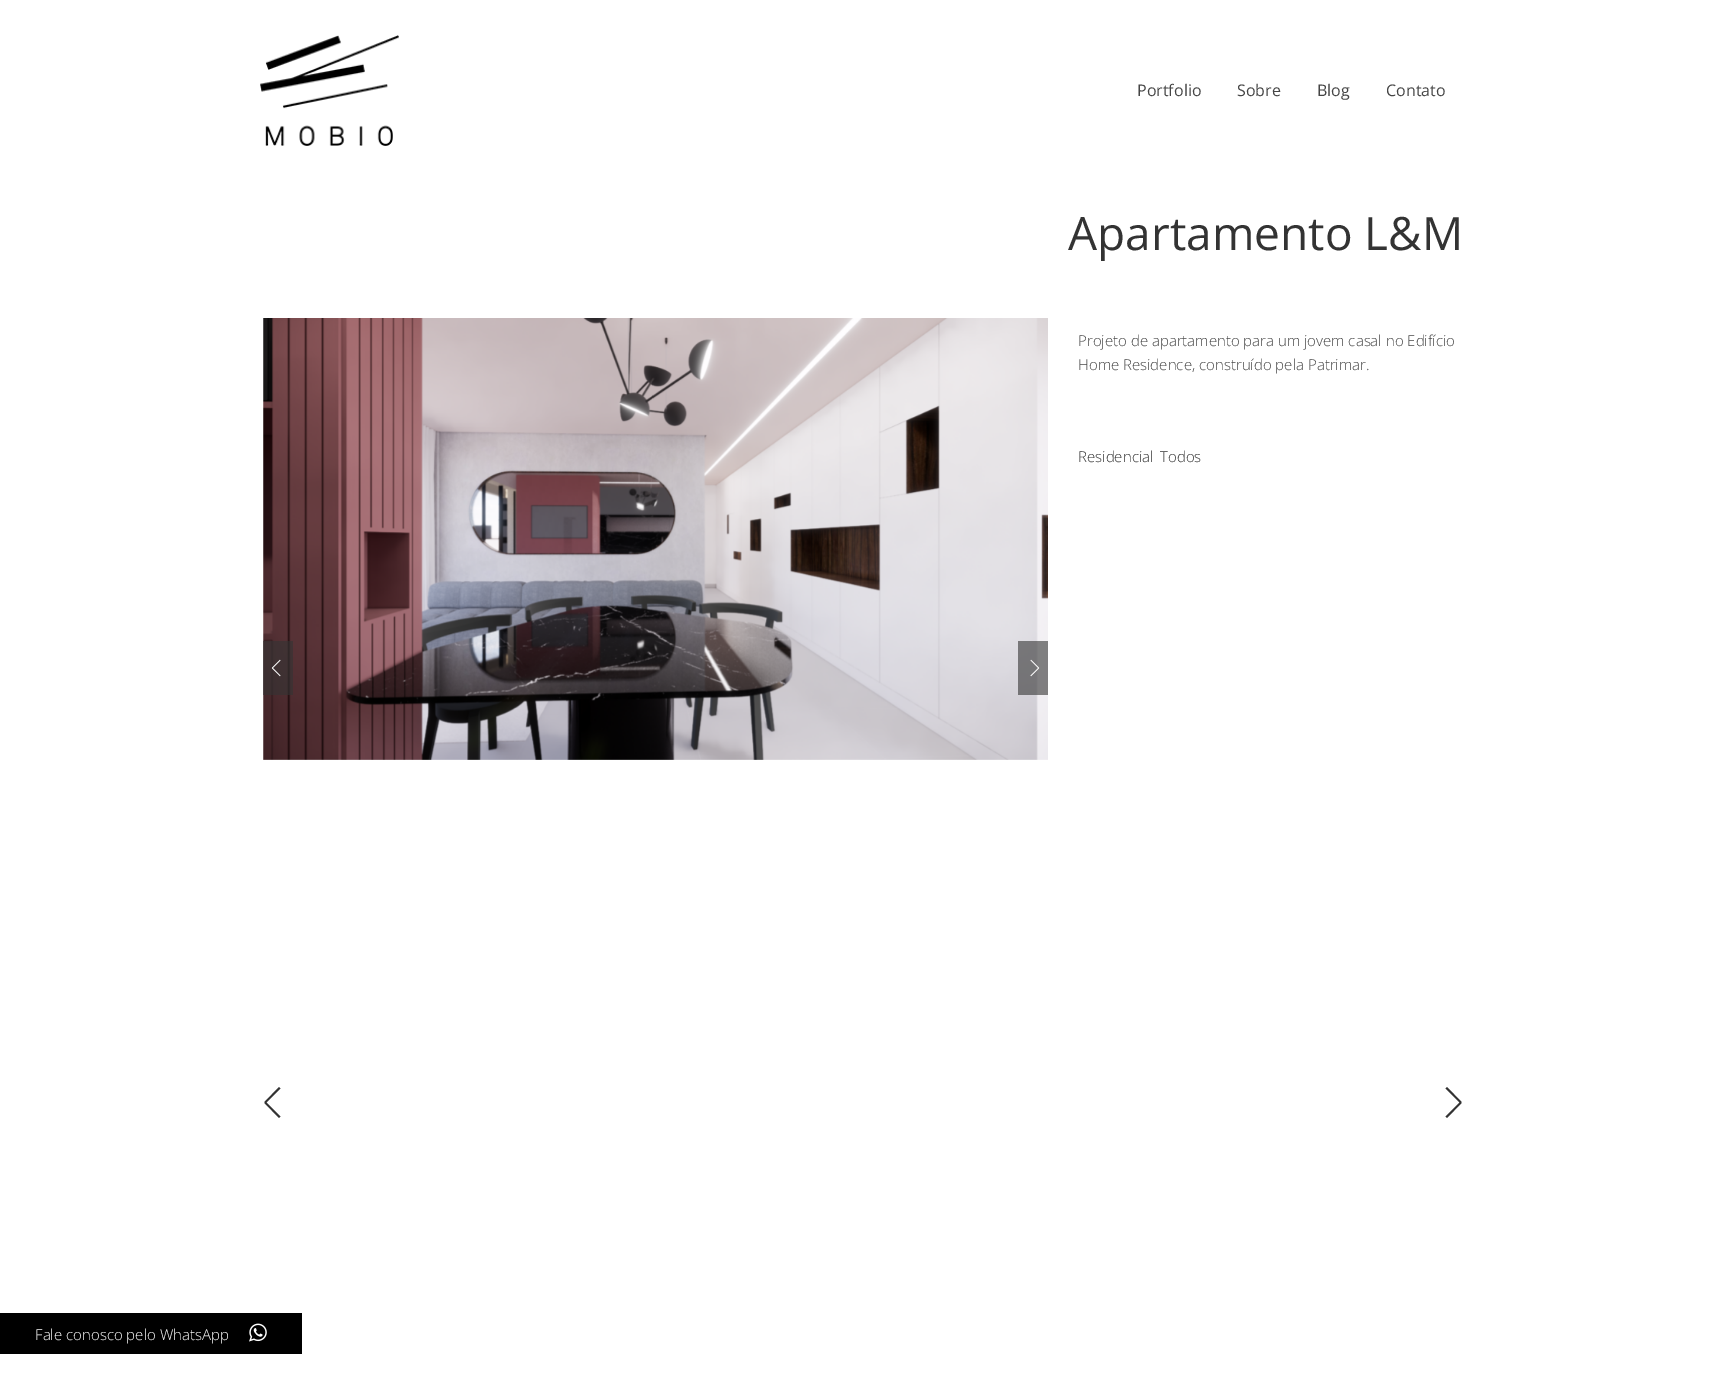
%!PS-Adobe-3.0
%%BoundingBox: 0 0 1726 1379
%%LanguageLevel: 3
%%Pages: 1
%%EndComments
%%BeginProlog
/setink { 3 { 255 div 3 1 roll } repeat setrgbcolor } def
/usefont { [ exch dup neg 0 0 3 -1 roll 0 0 ] selectfont } def
/drawtext { setink usefont moveto show } def
/fillbox { setink rectfill } def
/setalpha { dup .setfillconstantalpha .setstrokeconstantalpha } def
/drawimage { 5 dict begin { /h /w /y /x /name } { exch def } forall
  gsave x y translate w h scale
  w h 8 [w 0 0 h 0 0] name (r) file false 3 colorimage grestore end } def
%%EndProlog
%%BeginSetup
<< /PageSize [1726 1379] /PageUsesTransparency true >> setpagedevice
%%EndSetup
%%Page: 1 1
0 .pushpdf14devicefilter
0 1379 translate 1 -1 scale
4 setmiterlimit
0 0 1726 1379 255 255 255 fillbox
(assets/img1.rgb) 260 35 139 111 drawimage
(Portfolio) 1137 96 /OpenSans-Regular 16 69 69 69 drawtext
(Sobre) 1237 96 /OpenSans-Regular 16 69 69 69 drawtext
(Blog) 1317 96 /OpenSans-Regular 16 69 69 69 drawtext
(Contato) 1386 96 /OpenSans-Regular 16 69 69 69 drawtext
(Apartamento L&M) 1068 250 /OpenSans-Regular 46 51 51 51 drawtext
(assets/img2.rgb) 263 318 785 442 drawimage
0.6 setalpha
263 641 30 54 51 51 51 fillbox
1 setalpha
(assets/img3.rgb) 271 659 10 18 drawimage
0.6 setalpha
1018 641 30 54 51 51 51 fillbox
1 setalpha
(assets/img4.rgb) 1030 659 10 18 drawimage
(Projeto de apartamento para um jovem casal no Edifício) 1078 346 /OpenSans-Light 15 69 69 69 drawtext
(Home Residence, construído pela Patrimar.) 1078 370 /OpenSans-Light 15 69 69 69 drawtext
(Residencial) 1078 462 /OpenSans-Light 15 51 51 51 drawtext
(Todos) 1160 462 /OpenSans-Light 15 51 51 51 drawtext
279 1087 moveto 280.5 1088.5 lineto 266.5 1102.5 lineto 280.5 1116.5 lineto 279 1118 lineto 264.5 1103 lineto 264.5 1102 lineto closepath fill
1461.5 1102 moveto 1461.5 1103 lineto 1447 1118 lineto 1445.5 1116.5 lineto 1459.5 1102.5 lineto 1445.5 1088.5 lineto 1447 1087 lineto closepath fill
0 1313 302 41 0 0 0 fillbox
(Fale conosco pelo WhatsApp) 35 1340 /OpenSans-Light 15 255 255 255 drawtext
(assets/img5.rgb) 249 1323 18 19 drawimage
.poppdf14devicefilter showpage
%%EOF
